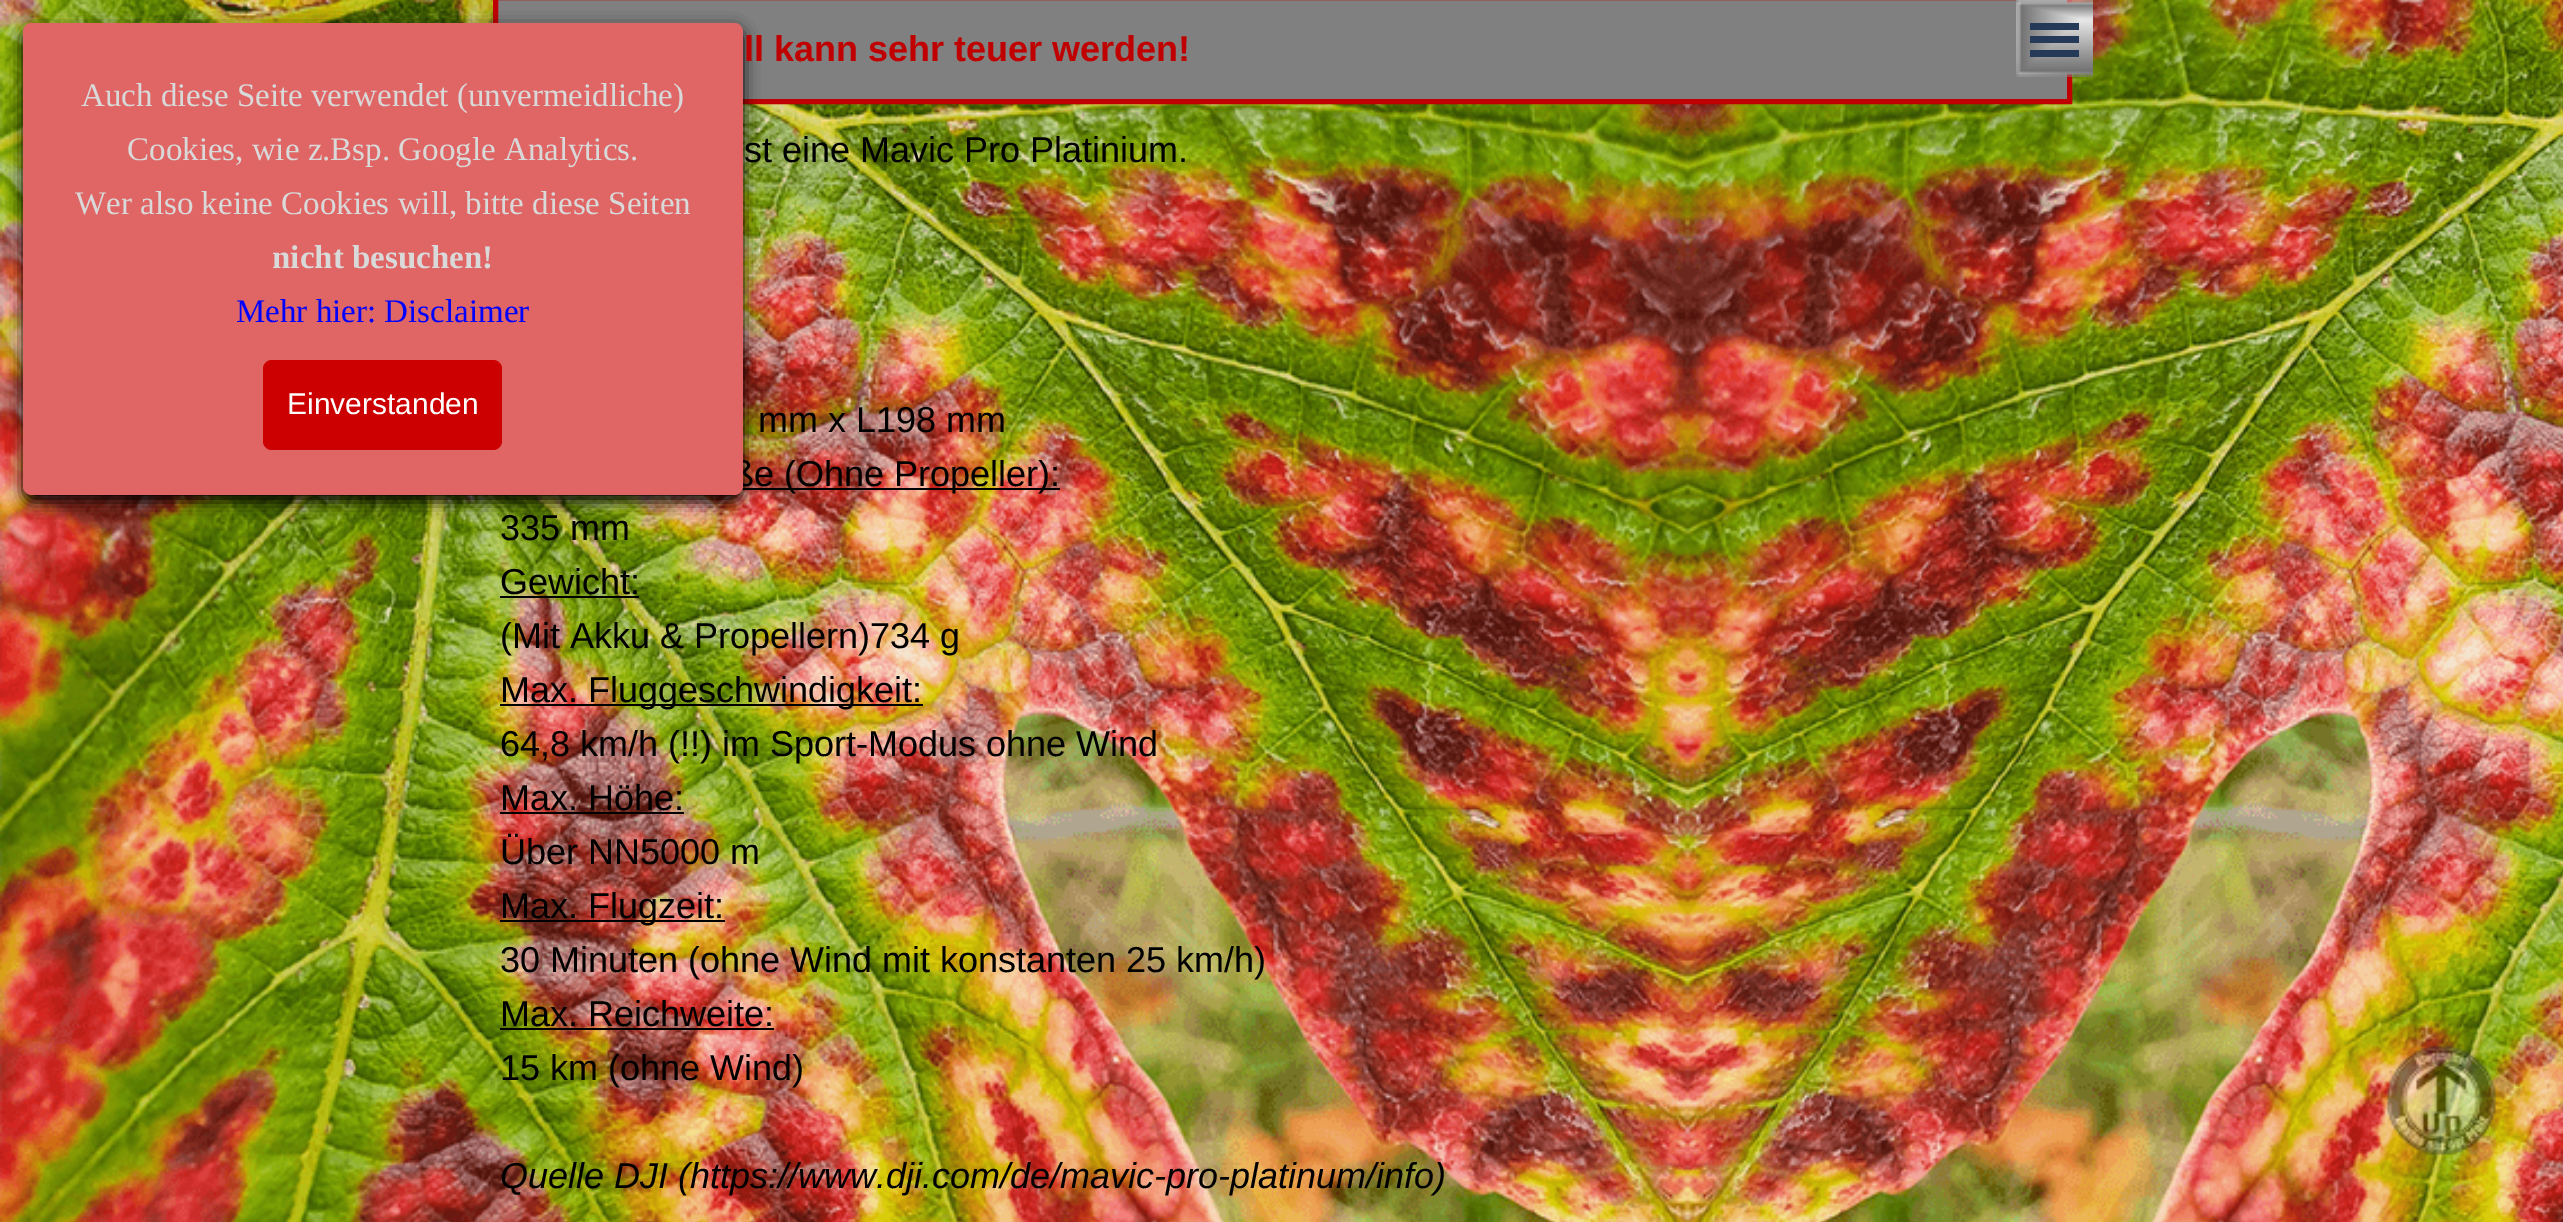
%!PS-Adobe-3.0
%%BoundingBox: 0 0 2563 1222
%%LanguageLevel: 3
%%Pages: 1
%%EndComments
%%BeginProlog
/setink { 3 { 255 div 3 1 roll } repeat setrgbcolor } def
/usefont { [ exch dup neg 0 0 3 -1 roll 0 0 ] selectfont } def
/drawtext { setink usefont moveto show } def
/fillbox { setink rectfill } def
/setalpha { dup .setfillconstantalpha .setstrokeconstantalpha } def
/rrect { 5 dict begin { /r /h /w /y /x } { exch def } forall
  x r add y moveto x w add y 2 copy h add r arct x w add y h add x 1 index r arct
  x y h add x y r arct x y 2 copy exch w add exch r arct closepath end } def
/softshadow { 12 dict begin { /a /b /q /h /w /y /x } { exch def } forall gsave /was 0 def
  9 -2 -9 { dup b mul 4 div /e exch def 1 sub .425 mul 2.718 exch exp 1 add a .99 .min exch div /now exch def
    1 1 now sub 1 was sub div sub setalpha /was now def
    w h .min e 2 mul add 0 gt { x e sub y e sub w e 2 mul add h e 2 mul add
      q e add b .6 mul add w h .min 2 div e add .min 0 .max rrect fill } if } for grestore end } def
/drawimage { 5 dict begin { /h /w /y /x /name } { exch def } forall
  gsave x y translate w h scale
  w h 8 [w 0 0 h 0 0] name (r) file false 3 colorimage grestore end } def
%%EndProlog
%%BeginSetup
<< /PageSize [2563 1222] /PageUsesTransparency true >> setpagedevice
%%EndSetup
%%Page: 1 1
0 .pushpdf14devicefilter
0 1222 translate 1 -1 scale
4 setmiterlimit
0 0 2563 1222 255 255 255 fillbox
(assets/img1.rgb) 0 0 2563 1222 drawimage
128 128 128 setink
495.5 -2.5 moveto 2069.5 -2.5 lineto 2069.5 101.5 lineto 495.5 101.5 lineto closepath gsave fill grestore
192 0 0 setink
5 setlinewidth
stroke
742 488 318 2 0 0 0 fillbox
23 29 720 473 9 8 1 softshadow
(ße \(Ohne Propeller\):) 732 486 /LiberationSans-Regular 36 0 0 0 drawtext
224 102 102 setink
23 23 720 472 9 rrect fill
(Auch diese Seite verwendet \(unvermeidliche\)) 81 106 /LiberationSerif-Regular 33 217 217 217 drawtext
(Cookies, wie z.Bsp. Google Analytics.) 127 160 /LiberationSerif-Regular 33 217 217 217 drawtext
(Wer also keine Cookies will, bitte diese Seiten) 75 214 /LiberationSerif-Regular 33 217 217 217 drawtext
(nicht besuchen!) 272 268 /LiberationSerif-Bold 33 217 217 217 drawtext
(Mehr hier: Disclaimer) 236 322 /LiberationSerif-Regular 33 0 0 255 drawtext
204 0 0 setink
263 360 239 90 9 rrect fill
(Einverstanden) 287 414 /LiberationSans-Regular 30 255 255 255 drawtext
(ll kann sehr teuer werden!) 744 61 /LiberationSans-Bold 36 192 0 0 drawtext
(st eine Mavic Pro Platinium.) 744 162 /LiberationSans-Regular 36 0 0 0 drawtext
(mm x L198 mm) 758 432 /LiberationSans-Regular 36 0 0 0 drawtext
(335 mm) 500 540 /LiberationSans-Regular 36 0 0 0 drawtext
(Gewicht:) 500 594 /LiberationSans-Regular 36 0 0 0 drawtext
500 596 139 2 0 0 0 fillbox
(\(Mit Akku & Propellern\)734 g) 500 648 /LiberationSans-Regular 36 0 0 0 drawtext
500 704 423 2 0 0 0 fillbox
(Max. Fluggeschwindigkeit:) 500 702 /LiberationSans-Regular 36 0 0 0 drawtext
(64,8 km/h \(!!\) im Sport-Modus ohne Wind) 500 756 /LiberationSans-Regular 36 0 0 0 drawtext
(Max. Höhe:) 500 810 /LiberationSans-Regular 36 0 0 0 drawtext
500 812 184 2 0 0 0 fillbox
(Über NN5000 m) 500 864 /LiberationSans-Regular 36 0 0 0 drawtext
500 920 225 2 0 0 0 fillbox
(Max. Flugzeit:) 500 918 /LiberationSans-Regular 36 0 0 0 drawtext
(30 Minuten \(ohne Wind mit konstanten 25 km/h\)) 500 972 /LiberationSans-Regular 36 0 0 0 drawtext
(Max. Reichweite:) 500 1026 /LiberationSans-Regular 36 0 0 0 drawtext
500 1028 274 2 0 0 0 fillbox
(15 km \(ohne Wind\)) 500 1080 /LiberationSans-Regular 36 0 0 0 drawtext
(Quelle DJI \(https://www.dji.com/de/mavic-pro-platinum/info\)) 500 1188 /LiberationSans-Italic 36 0 0 0 drawtext
(assets/img2.rgb) 2016 0 77 77 drawimage
2030 23 49 7 37 58 88 fillbox
2030 36 49 7 37 58 88 fillbox
2030 50 49 7 37 58 88 fillbox
(assets/img3.rgb) 2386 1045 110 110 drawimage
.poppdf14devicefilter showpage
%%EOF
